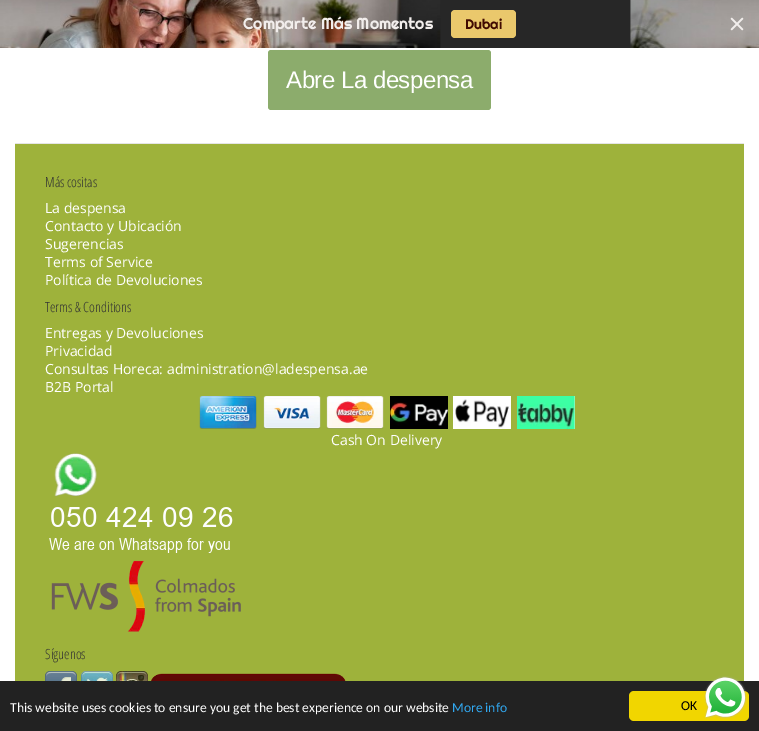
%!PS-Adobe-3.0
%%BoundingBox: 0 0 759 731
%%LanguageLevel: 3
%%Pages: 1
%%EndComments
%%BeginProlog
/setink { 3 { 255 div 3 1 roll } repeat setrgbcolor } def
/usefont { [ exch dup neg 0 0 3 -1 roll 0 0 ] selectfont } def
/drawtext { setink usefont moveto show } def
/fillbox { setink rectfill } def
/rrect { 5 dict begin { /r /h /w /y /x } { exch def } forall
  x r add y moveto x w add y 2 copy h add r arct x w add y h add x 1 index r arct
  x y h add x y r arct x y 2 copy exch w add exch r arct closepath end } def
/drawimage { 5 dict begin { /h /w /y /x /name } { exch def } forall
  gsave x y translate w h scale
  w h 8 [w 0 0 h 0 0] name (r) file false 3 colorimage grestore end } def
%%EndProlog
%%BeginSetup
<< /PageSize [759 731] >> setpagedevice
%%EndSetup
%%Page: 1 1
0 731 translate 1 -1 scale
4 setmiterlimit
0 0 759 731 255 255 255 fillbox
(assets/img1.rgb) 0 0 759 48 drawimage
(Comparte Más Momentos) 243 29 /Righteous-Regular 16 242 238 236 drawtext
234 200 108 setink
451 10 65 28 4 rrect fill
(Dubai) 465 29 /Righteous-Regular 14 65 10 1 drawtext
(assets/img2.rgb) 730 17 14 14 drawimage
140 172 108 setink
268 50 223 60 3 rrect fill
/LiberationSans-Regular 24 usefont
255 255 255 setink
286 88 moveto -0.5 0 (Abre La despensa) ashow
15 144 729 537 158 178 59 fillbox
15 143 729 1 229 229 229 fillbox
(Más cositas) 45 187 /OpenSansCondensed-Light 14 51 51 51 drawtext
(La despensa) 45 213 /OpenSans-Regular 14 255 255 255 drawtext
(Contacto y Ubicación) 45 231 /OpenSans-Regular 14 255 255 255 drawtext
(Sugerencias) 45 249 /OpenSans-Regular 14 255 255 255 drawtext
(Terms of Service) 45 267 /OpenSans-Regular 14 255 255 255 drawtext
(Política de Devoluciones) 45 285 /OpenSans-Regular 14 255 255 255 drawtext
(Terms & Conditions) 45 312 /OpenSansCondensed-Light 14 51 51 51 drawtext
(Entregas y Devoluciones) 45 338 /OpenSans-Regular 14 255 255 255 drawtext
(Privacidad) 45 356 /OpenSans-Regular 14 255 255 255 drawtext
(Consultas Horeca: administration@ladespensa.ae) 45 374 /OpenSans-Regular 14 255 255 255 drawtext
(B2B Portal) 45 392 /OpenSans-Regular 14 255 255 255 drawtext
(assets/img3.rgb) 199 396 58 33 drawimage
(assets/img4.rgb) 263 396 58 33 drawimage
(assets/img5.rgb) 326 396 58 33 drawimage
(assets/img6.rgb) 390 396 58 33 drawimage
(assets/img7.rgb) 453 396 58 33 drawimage
(assets/img8.rgb) 517 396 58 33 drawimage
(Cash On Delivery) 331 445 /OpenSans-Regular 14 255 255 255 drawtext
(assets/img9.rgb) 51 453 182 74 drawimage
(assets/img10.rgb) 49 538 181 15 drawimage
(assets/img11.rgb) 51 560 190 72 drawimage
(Síguenos) 45 659 /OpenSansCondensed-Light 14 51 51 51 drawtext
(assets/img12.rgb) 45 671 32 10 drawimage
(assets/img13.rgb) 81 671 32 10 drawimage
(assets/img14.rgb) 116 671 32 10 drawimage
(assets/img15.rgb) 151 673 195 8 drawimage
0 681 759 50 34 34 34 fillbox
(This website uses cookies to ensure you get the best experience on our website) 10 712 /Carlito-Regular 13.6 255 255 255 drawtext
(More info) 452 712 /Carlito-Regular 13.6 49 168 240 drawtext
241 214 0 setink
629 691 120 30 5 rrect fill
(OK) 681 710 /Carlito-Regular 13.6 0 0 0 drawtext
(assets/img16.rgb) 704 676 43 43 drawimage
showpage
%%EOF
